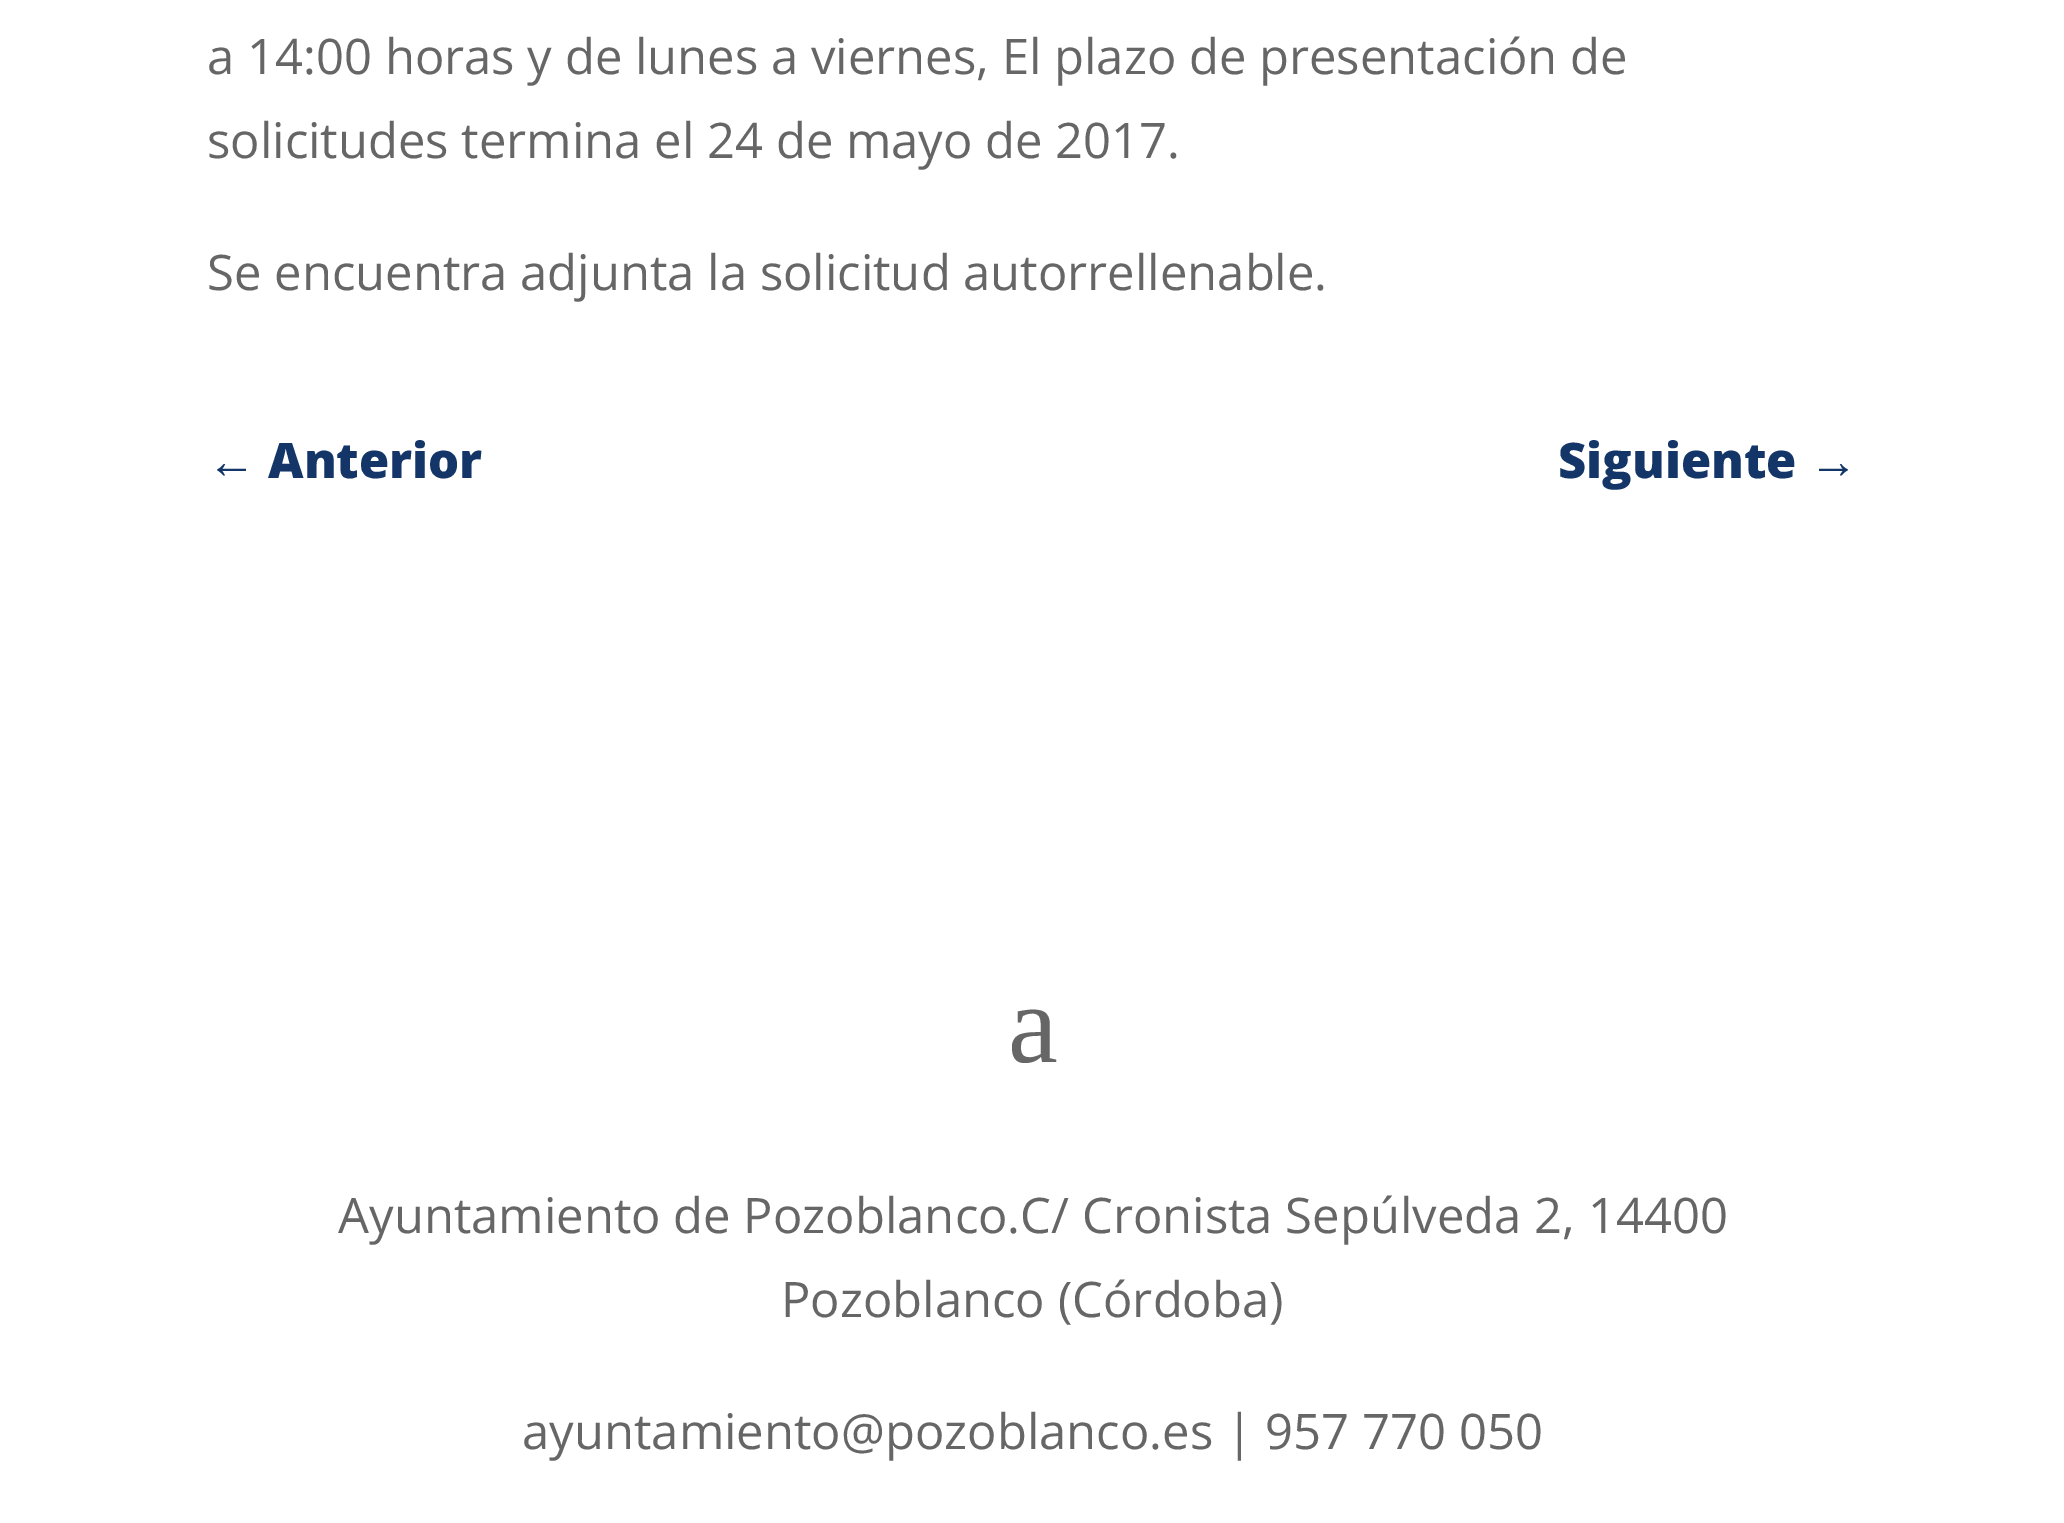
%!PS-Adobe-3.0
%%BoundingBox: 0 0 2064 1523
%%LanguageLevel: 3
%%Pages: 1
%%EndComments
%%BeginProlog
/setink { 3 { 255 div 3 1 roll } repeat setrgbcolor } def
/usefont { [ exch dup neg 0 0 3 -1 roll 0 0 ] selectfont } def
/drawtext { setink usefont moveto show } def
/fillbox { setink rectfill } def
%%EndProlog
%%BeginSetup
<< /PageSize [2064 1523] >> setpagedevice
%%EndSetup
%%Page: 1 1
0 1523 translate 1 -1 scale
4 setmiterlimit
0 0 2064 1523 255 255 255 fillbox
(a 14:00 horas y de lunes a viernes, El plazo de presentación de) 207 74 /OpenSans-Regular 49 102 102 102 drawtext
(solicitudes termina el 24 de mayo de 2017.) 207 158 /OpenSans-Regular 49 102 102 102 drawtext
(Se encuentra adjunta la solicitud autorrellenable.) 207 290 /OpenSans-Regular 49 102 102 102 drawtext
(←) 207 478 /LiberationSans-Bold 49 20 53 104 drawtext
(Anterior) 268 478 /OpenSans-ExtraBold 49 20 53 104 drawtext
(Siguiente) 1558 478 /OpenSans-ExtraBold 49 20 53 104 drawtext
(→) 1809 478 /LiberationSans-Bold 49 20 53 104 drawtext
(a) 1008 1062 /LiberationSerif-Regular 112 102 102 102 drawtext
(Ayuntamiento de Pozoblanco.C/ Cronista Sepúlveda 2, 14400) 338 1233 /OpenSans-Regular 49 102 102 102 drawtext
(Pozoblanco \(Córdoba\)) 781 1317 /OpenSans-Regular 49 102 102 102 drawtext
(ayuntamiento@pozoblanco.es | 957 770 050) 522 1449 /OpenSans-Regular 49 102 102 102 drawtext
showpage
%%EOF
